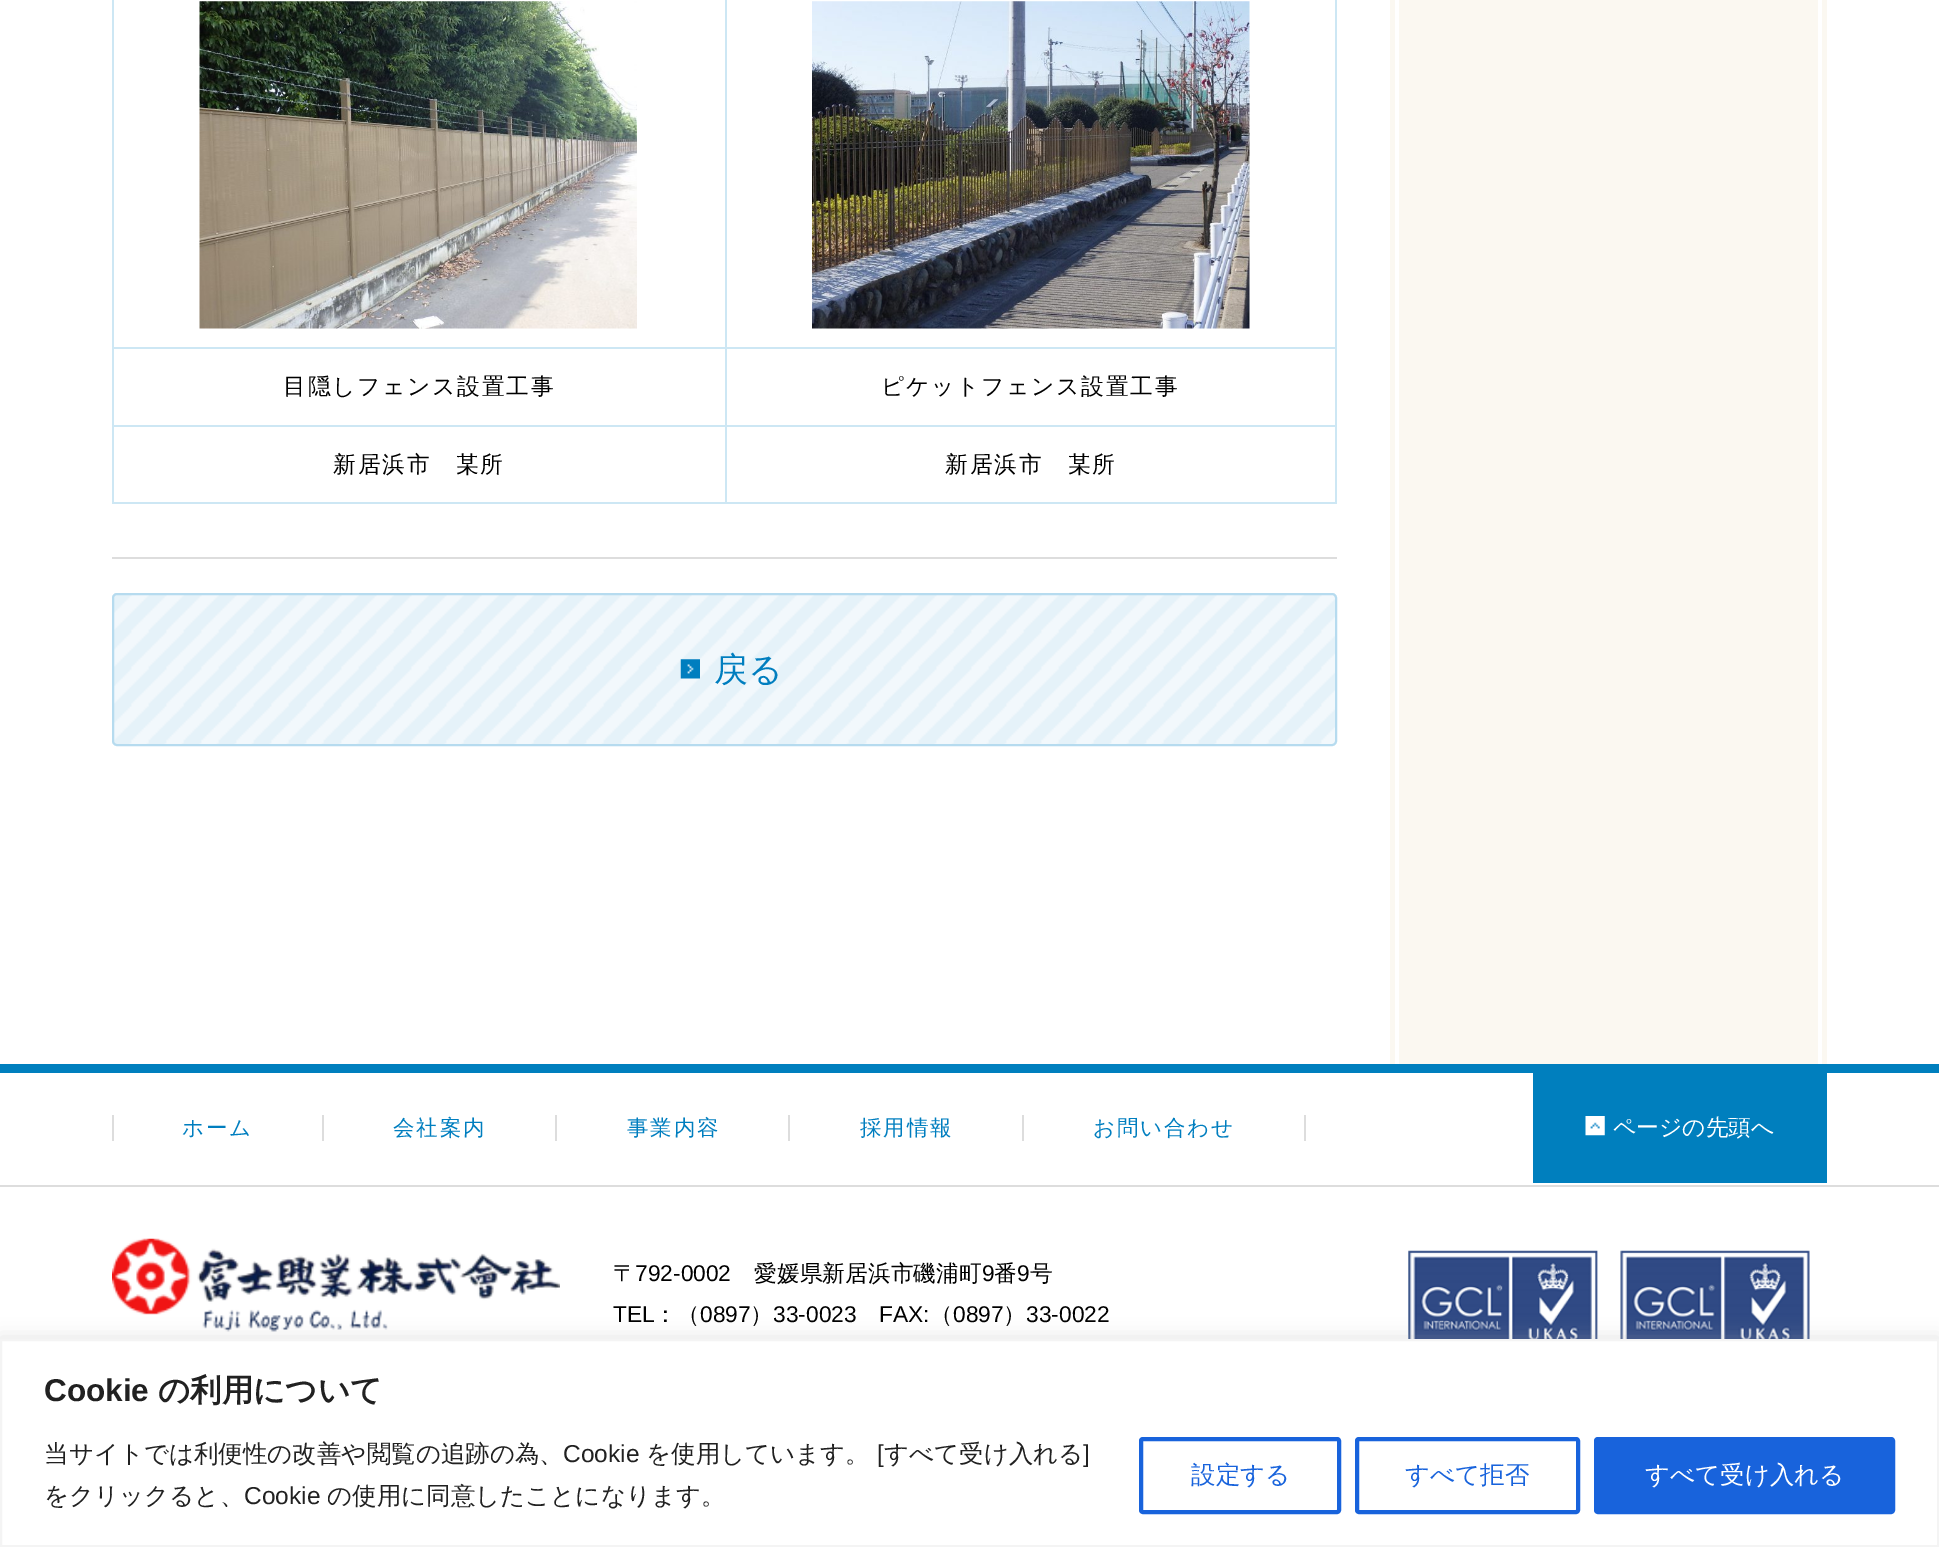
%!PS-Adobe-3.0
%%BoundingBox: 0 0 1939 1547
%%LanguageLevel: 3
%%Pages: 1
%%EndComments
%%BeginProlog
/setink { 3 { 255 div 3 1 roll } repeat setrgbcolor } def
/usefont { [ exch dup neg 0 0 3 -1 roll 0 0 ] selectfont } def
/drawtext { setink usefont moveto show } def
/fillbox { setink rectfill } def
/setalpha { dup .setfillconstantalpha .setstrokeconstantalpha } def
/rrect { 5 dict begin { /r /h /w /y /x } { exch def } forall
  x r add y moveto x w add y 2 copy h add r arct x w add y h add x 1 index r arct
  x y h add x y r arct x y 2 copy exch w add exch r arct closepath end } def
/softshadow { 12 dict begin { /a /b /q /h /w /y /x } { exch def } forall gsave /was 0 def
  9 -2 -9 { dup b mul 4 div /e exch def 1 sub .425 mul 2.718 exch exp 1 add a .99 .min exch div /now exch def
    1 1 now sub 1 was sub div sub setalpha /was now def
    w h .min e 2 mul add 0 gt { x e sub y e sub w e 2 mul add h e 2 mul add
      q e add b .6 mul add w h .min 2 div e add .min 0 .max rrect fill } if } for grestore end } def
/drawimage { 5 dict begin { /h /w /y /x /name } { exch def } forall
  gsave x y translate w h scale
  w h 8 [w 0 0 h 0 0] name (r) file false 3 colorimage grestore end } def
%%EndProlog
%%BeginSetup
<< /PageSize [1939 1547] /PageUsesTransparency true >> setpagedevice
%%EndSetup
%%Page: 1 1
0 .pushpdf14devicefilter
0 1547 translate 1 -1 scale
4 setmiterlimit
0 0 1939 1547 255 255 255 fillbox
1335 0 2 504 205 231 244 fillbox
112 502 1225 2 205 231 244 fillbox
112 0 2 504 205 231 244 fillbox
(assets/img1.rgb) 199 1 438 328 drawimage
725 347 612 2 205 231 244 fillbox
725 425 612 2 205 231 244 fillbox
725 425 2 79 205 231 244 fillbox
112 425 614 2 205 231 244 fillbox
725 347 2 80 205 231 244 fillbox
112 347 614 2 205 231 244 fillbox
725 0 2 348 205 231 244 fillbox
(assets/img2.rgb) 812 1 438 328 drawimage
/WenQuanYiZenHei-Medium 22.75 usefont
0 0 0 setink
283 394 moveto 1.75 0 (目隠しフェンス設置工事) ashow
881 394 moveto 1.75 0 (ピケットフェンス設置工事) ashow
333 472 moveto 1.75 0 (新居浜市　某所) ashow
945 472 moveto 1.75 0 (新居浜市　某所) ashow
112 557 1225 2 221 221 221 fillbox
(assets/img3.rgb) 112 593 1225 151 drawimage
182 219 239 setink
2 setlinewidth
113 594 1223 151 4 rrect stroke
(assets/img4.rgb) 680 659 20 20 drawimage
(戻る) 714 681 /WenQuanYiZenHei-Medium 34 0 126 191 drawtext
1390 0 437 1064 251 248 241 fillbox
1818 0 4 1064 255 255 255 fillbox
1395 0 4 1064 255 255 255 fillbox
0 1064 1939 9 0 127 190 fillbox
0 1185 1939 2 221 221 221 fillbox
112 1115 2 26 221 221 221 fillbox
/WenQuanYiZenHei-Medium 21.5 usefont
0 126 191 setink
182 1135 moveto 1.75 0 (ホーム) ashow
322 1115 2 26 221 221 221 fillbox
0 126 191 setink
393 1135 moveto 1.75 0 (会社案内) ashow
555 1115 2 26 221 221 221 fillbox
0 126 191 setink
627 1135 moveto 1.75 0 (事業内容) ashow
788 1115 2 26 221 221 221 fillbox
0 126 191 setink
860 1135 moveto 1.75 0 (採用情報) ashow
1022 1115 2 26 221 221 221 fillbox
0 126 191 setink
1093 1135 moveto 1.75 0 (お問い合わせ) ashow
1304 1115 2 26 221 221 221 fillbox
1533 1073 294 110 0 127 190 fillbox
(assets/img5.rgb) 1585 1116 20 20 drawimage
(ページの先頭へ) 1613 1135 /WenQuanYiZenHei-Medium 22.75 255 255 255 drawtext
(assets/img6.rgb) 112 1238 448 94 drawimage
(〒) 613 1281 /WenQuanYiZenHei-Medium 22.75 0 0 0 drawtext
(792-0002) 635 1281 /LiberationSans-Regular 22.75 0 0 0 drawtext
(愛媛県新居浜市磯浦町) 754 1281 /WenQuanYiZenHei-Medium 22.75 0 0 0 drawtext
(9) 982 1281 /LiberationSans-Regular 22.75 0 0 0 drawtext
(番) 994 1281 /WenQuanYiZenHei-Medium 22.75 0 0 0 drawtext
(9) 1017 1281 /LiberationSans-Regular 22.75 0 0 0 drawtext
(号) 1030 1281 /WenQuanYiZenHei-Medium 22.75 0 0 0 drawtext
(TEL) 613 1322 /LiberationSans-Regular 22.75 0 0 0 drawtext
(：（) 654 1322 /WenQuanYiZenHei-Medium 22.75 0 0 0 drawtext
(0897) 700 1322 /LiberationSans-Regular 22.75 0 0 0 drawtext
(）) 750 1322 /WenQuanYiZenHei-Medium 22.75 0 0 0 drawtext
(33-0023) 773 1322 /LiberationSans-Regular 22.75 0 0 0 drawtext
(FAX:) 879 1322 /LiberationSans-Regular 22.75 0 0 0 drawtext
(（) 930 1322 /WenQuanYiZenHei-Medium 22.75 0 0 0 drawtext
(0897) 953 1322 /LiberationSans-Regular 22.75 0 0 0 drawtext
(）) 1003 1322 /WenQuanYiZenHei-Medium 22.75 0 0 0 drawtext
(33-0022) 1026 1322 /LiberationSans-Regular 22.75 0 0 0 drawtext
(assets/img7.rgb) 1408 1250 402 89 drawimage
172 171 171 setink
0 1337 1939 208 0 9 0.3 softshadow
255 255 255 setink
1 1340 moveto 1938 1340 lineto 1938 1546 lineto 1 1546 lineto closepath gsave fill grestore
244 244 244 setink
stroke
(Cookie) 44 1401 /LiberationSans-Bold 31.5 33 33 33 drawtext
(の利用について) 158 1401 /WenQuanYiZenHei-Bold 31.5 33 33 33 drawtext
(当サイトでは利便性の改善や閲覧の追跡の為、) 44 1462 /WenQuanYiZenHei-Medium 24.5 33 33 33 drawtext
(Cookie) 563 1462 /LiberationSans-Regular 24.5 33 33 33 drawtext
(を使用しています。) 646 1462 /WenQuanYiZenHei-Medium 24.5 33 33 33 drawtext
([) 877 1462 /LiberationSans-Regular 24.5 33 33 33 drawtext
(すべて受け入れる) 884 1462 /WenQuanYiZenHei-Medium 24.5 33 33 33 drawtext
(]) 1083 1462 /LiberationSans-Regular 24.5 33 33 33 drawtext
(をクリックると、) 44 1504 /WenQuanYiZenHei-Medium 24.5 33 33 33 drawtext
(Cookie) 244 1504 /LiberationSans-Regular 24.5 33 33 33 drawtext
(の使用に同意したことになります。) 327 1504 /WenQuanYiZenHei-Medium 24.5 33 33 33 drawtext
24 99 220 setink
4 setlinewidth
1141 1439 198 73 2 rrect stroke
(設定する) 1191 1483 /WenQuanYiZenHei-Medium 24.5 24 99 220 drawtext
1357 1439 221 73 2 rrect stroke
(すべて拒否) 1405 1483 /WenQuanYiZenHei-Medium 24.5 24 99 220 drawtext
1596 1439 297 73 2 rrect gsave fill grestore
stroke
(すべて受け入れる) 1645 1483 /WenQuanYiZenHei-Medium 24.5 255 255 255 drawtext
.poppdf14devicefilter showpage
%%EOF
